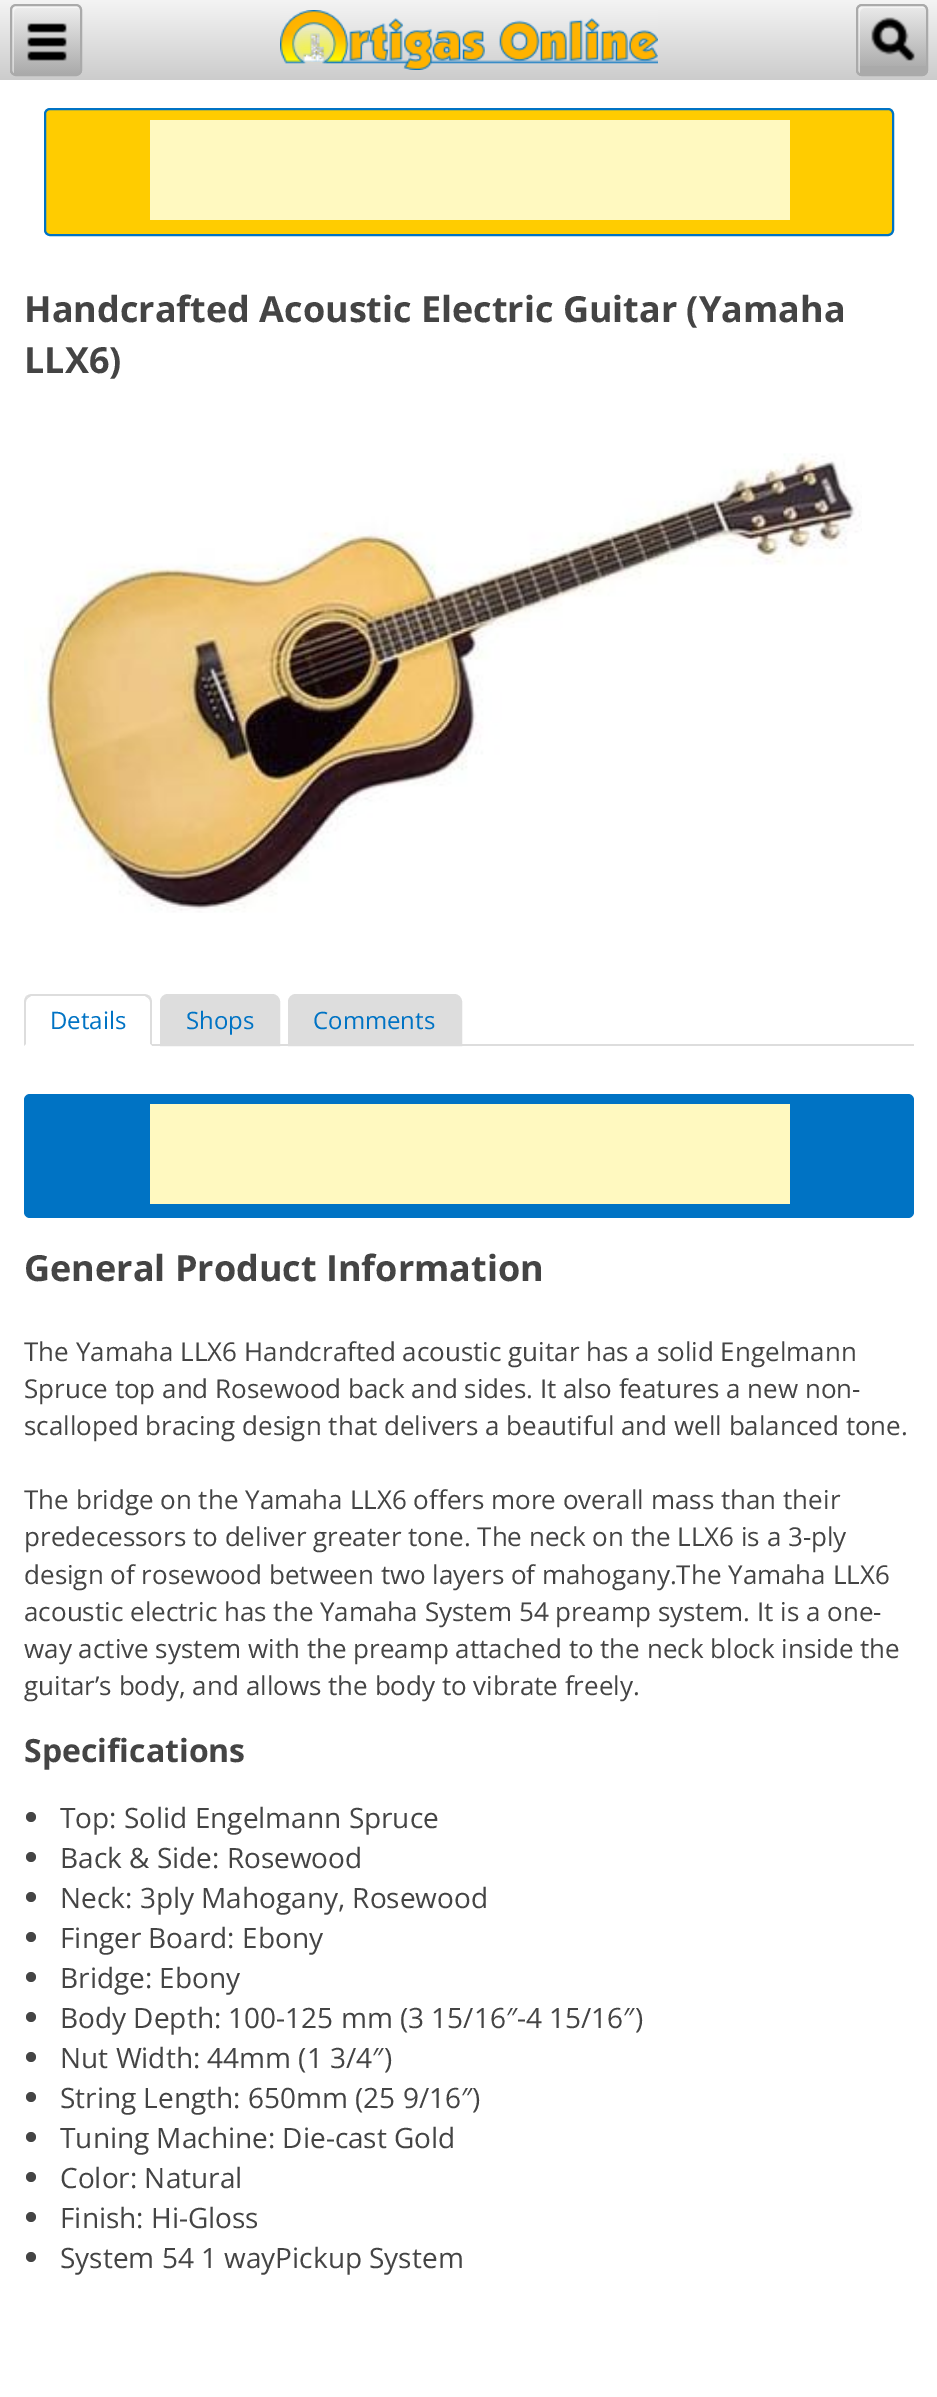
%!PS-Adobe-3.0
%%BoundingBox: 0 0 937 2397
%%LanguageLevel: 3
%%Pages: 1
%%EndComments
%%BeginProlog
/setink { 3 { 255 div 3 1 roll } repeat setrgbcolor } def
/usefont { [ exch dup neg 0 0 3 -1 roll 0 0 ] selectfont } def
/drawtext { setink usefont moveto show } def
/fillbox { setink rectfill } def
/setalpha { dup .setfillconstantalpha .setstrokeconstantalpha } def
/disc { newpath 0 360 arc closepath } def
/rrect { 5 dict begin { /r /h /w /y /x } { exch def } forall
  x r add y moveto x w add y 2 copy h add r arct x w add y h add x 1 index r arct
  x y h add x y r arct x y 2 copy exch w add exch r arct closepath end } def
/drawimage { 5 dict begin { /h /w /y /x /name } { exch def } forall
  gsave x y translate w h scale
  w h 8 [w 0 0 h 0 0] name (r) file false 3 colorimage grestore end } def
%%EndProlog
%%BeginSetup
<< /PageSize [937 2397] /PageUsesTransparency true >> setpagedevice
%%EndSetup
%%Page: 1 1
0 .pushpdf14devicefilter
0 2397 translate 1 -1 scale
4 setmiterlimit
0 0 937 2397 255 255 255 fillbox
gsave 0 0 moveto 937 0 lineto 937 80 lineto 0 80 lineto closepath clip newpath
<< /ShadingType 2 /ColorSpace /DeviceRGB /Coords [469 0 469 80] /Extend [true true] /Function << /FunctionType 2 /Domain [0 1] /C0 [0.957 0.957 0.957] /C1 [0.8 0.8 0.8] /N 1 >> >> shfill grestore
(assets/img1.rgb) 10 6 72 68 drawimage
170 170 170 setink
2 setlinewidth
11 5 70 70 5 rrect stroke
(assets/img2.rgb) 280 10 378 60 drawimage
856 4 72 72 6 rrect fill
(assets/img3.rgb) 856 4 72 62 drawimage
0.5 setalpha
255 255 255 setink
864 8 moveto 924 8 lineto 926 8 lineto 925 7 924 6 922 6 curveto 862 6 lineto 860 6 858 8 858 10 curveto 858 70 lineto 858 72 859 73 860 74 curveto 860 72 lineto 860 12 lineto 860 10 862 8 864 8 curveto closepath fill
1 setalpha
170 170 170 setink
857 5 70 70 5 rrect stroke
255 204 0 setink
45 109 848 126 5 rrect gsave fill grestore
0 115 196 setink
stroke
150 120 640 100 255 249 192 fillbox
(Handcrafted Acoustic Electric Guitar \(Yamaha) 24 322 /OpenSans-Bold 36 68 68 68 drawtext
(LLX6\)) 24 373 /OpenSans-Bold 36 68 68 68 drawtext
(assets/img4.rgb) 24 453 838 460 drawimage
152 1044 762 2 221 221 221 fillbox
32 994 moveto 30 994 28 995 26 996 curveto 28 998 lineto 31 996 lineto 145 996 lineto 148 998 lineto 150 996 lineto 148 995 146 994 144 994 curveto closepath fill
152 1046 moveto 152 1002 lineto 152 1000 151 998 150 996 curveto 148 998 lineto 149 999 150 1000 150 1002 curveto 150 1044 lineto closepath fill
255 255 255 setink
152 1046 moveto 150 1044 lineto 26 1044 lineto 24 1046 lineto closepath fill
221 221 221 setink
24 1046 moveto 26 1044 lineto 26 1002 lineto 26 1000 27 999 28 998 curveto 26 996 lineto 25 998 24 1000 24 1002 curveto closepath fill
(Details) 50 1029 /OpenSans-Regular 24 0 115 196 drawtext
221 221 221 setink
168 995 moveto 272 995 lineto 276 995 279 998 279 1002 curveto 279 1045 lineto 161 1045 lineto 161 1002 lineto 161 998 164 995 168 995 curveto closepath gsave fill grestore
stroke
(Shops) 186 1029 /OpenSans-Regular 24 0 115 196 drawtext
221 221 221 setink
296 995 moveto 454 995 lineto 458 995 461 998 461 1002 curveto 461 1045 lineto 289 1045 lineto 289 1002 lineto 289 998 292 995 296 995 curveto closepath gsave fill grestore
stroke
(Comments) 313 1029 /OpenSans-Regular 24 0 115 196 drawtext
24 1094 890 124 6 rrect fill
150 1104 640 100 255 249 192 fillbox
(General Product Information) 24 1281 /OpenSans-Bold 36 68 68 68 drawtext
(The Yamaha LLX6 Handcrafted acoustic guitar has a solid Engelmann) 24 1361 /OpenSans-Regular 26 68 68 68 drawtext
(Spruce top and Rosewood back and sides. It also features a new non-) 24 1398 /OpenSans-Regular 26 68 68 68 drawtext
(scalloped bracing design that delivers a beautiful and well balanced tone.) 24 1435 /OpenSans-Regular 26 68 68 68 drawtext
(The bridge on the Yamaha LLX6 offers more overall mass than their) 24 1509 /OpenSans-Regular 26 68 68 68 drawtext
(predecessors to deliver greater tone. The neck on the LLX6 is a 3-ply) 24 1546 /OpenSans-Regular 26 68 68 68 drawtext
(design of rosewood between two layers of mahogany.The Yamaha LLX6) 24 1584 /OpenSans-Regular 26 68 68 68 drawtext
(acoustic electric has the Yamaha System 54 preamp system. It is a one-) 24 1621 /OpenSans-Regular 26 68 68 68 drawtext
(way active system with the preamp attached to the neck block inside the) 24 1658 /OpenSans-Regular 26 68 68 68 drawtext
(guitar’s body, and allows the body to vibrate freely.) 24 1695 /OpenSans-Regular 26 68 68 68 drawtext
(Specifications) 24 1762 /OpenSans-Bold 32 68 68 68 drawtext
31 1817 5 disc fill
(Top: Solid Engelmann Spruce) 60 1828 /OpenSans-Regular 28 68 68 68 drawtext
31 1857 5 disc fill
(Back & Side: Rosewood) 60 1868 /OpenSans-Regular 28 68 68 68 drawtext
31 1897 5 disc fill
(Neck: 3ply Mahogany, Rosewood) 60 1908 /OpenSans-Regular 28 68 68 68 drawtext
31 1937 5 disc fill
(Finger Board: Ebony) 60 1948 /OpenSans-Regular 28 68 68 68 drawtext
31 1977 5 disc fill
(Bridge: Ebony) 60 1988 /OpenSans-Regular 28 68 68 68 drawtext
31 2017 5 disc fill
(Body Depth: 100-125 mm \(3 15/16″-4 15/16″\)) 60 2028 /OpenSans-Regular 28 68 68 68 drawtext
31 2057 5 disc fill
(Nut Width: 44mm \(1 3/4″\)) 60 2068 /OpenSans-Regular 28 68 68 68 drawtext
31 2097 5 disc fill
(String Length: 650mm \(25 9/16″\)) 60 2108 /OpenSans-Regular 28 68 68 68 drawtext
31 2137 5 disc fill
(Tuning Machine: Die-cast Gold) 60 2148 /OpenSans-Regular 28 68 68 68 drawtext
31 2177 5 disc fill
(Color: Natural) 60 2188 /OpenSans-Regular 28 68 68 68 drawtext
31 2217 5 disc fill
(Finish: Hi-Gloss) 60 2228 /OpenSans-Regular 28 68 68 68 drawtext
31 2257 5 disc fill
(System 54 1 wayPickup System) 60 2268 /OpenSans-Regular 28 68 68 68 drawtext
.poppdf14devicefilter showpage
%%EOF
